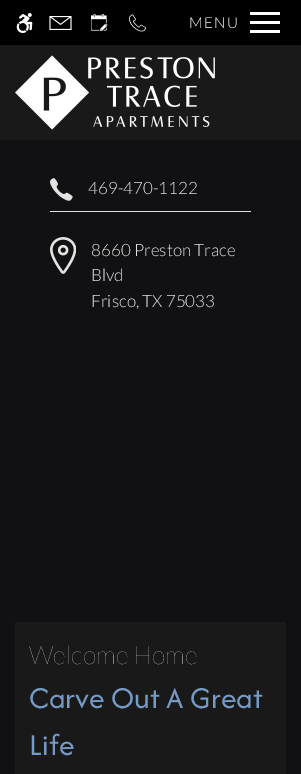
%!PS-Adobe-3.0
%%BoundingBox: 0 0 301 774
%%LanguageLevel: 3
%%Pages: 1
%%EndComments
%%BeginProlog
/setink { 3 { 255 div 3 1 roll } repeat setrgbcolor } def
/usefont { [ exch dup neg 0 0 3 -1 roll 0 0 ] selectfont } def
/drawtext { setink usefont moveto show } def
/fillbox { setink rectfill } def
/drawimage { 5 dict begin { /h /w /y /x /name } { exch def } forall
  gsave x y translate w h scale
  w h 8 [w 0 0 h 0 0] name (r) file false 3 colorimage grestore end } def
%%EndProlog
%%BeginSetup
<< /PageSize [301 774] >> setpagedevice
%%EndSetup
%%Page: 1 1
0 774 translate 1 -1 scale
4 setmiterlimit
0 0 301 774 17 17 19 fillbox
0 0 301 45 0 0 0 fillbox
(assets/img1.rgb) 16 13 17 20 drawimage
(assets/img2.rgb) 49 16 23 14 drawimage
(assets/img3.rgb) 91 14 17 17 drawimage
(assets/img4.rgb) 129 14 17 18 drawimage
/Lato-Light 15 usefont
255 255 255 setink
189 28 moveto 1.5 0 (MENU) ashow
250 12 30 3 255 255 255 fillbox
250 21 30 3 255 255 255 fillbox
250 30 30 3 255 255 255 fillbox
0 45 301 95 25 25 25 fillbox
(assets/img5.rgb) 15 55 200 75 drawimage
50 211 201 1 227 227 227 fillbox
(assets/img6.rgb) 50 178 23 23 drawimage
(469-470-1122) 88 194 /Lato-Light 17 227 227 227 drawtext
(assets/img7.rgb) 50 237 26 37 drawimage
(8660 Preston Trace) 91 256 /Lato-Light 17 227 227 227 drawtext
(Blvd) 91 281 /Lato-Light 17 227 227 227 drawtext
(Frisco, TX 75033) 91 307 /Lato-Light 17 227 227 227 drawtext
15 622 271 152 25 25 25 fillbox
(Welcome Home) 29 664 /Lato-Thin 25.25 220 220 220 drawtext
(Carve Out A Great) 29 708 /Afacad-Regular 31.5 118 154 198 drawtext
(Life) 29 755 /Afacad-Regular 31.5 118 154 198 drawtext
showpage
%%EOF
